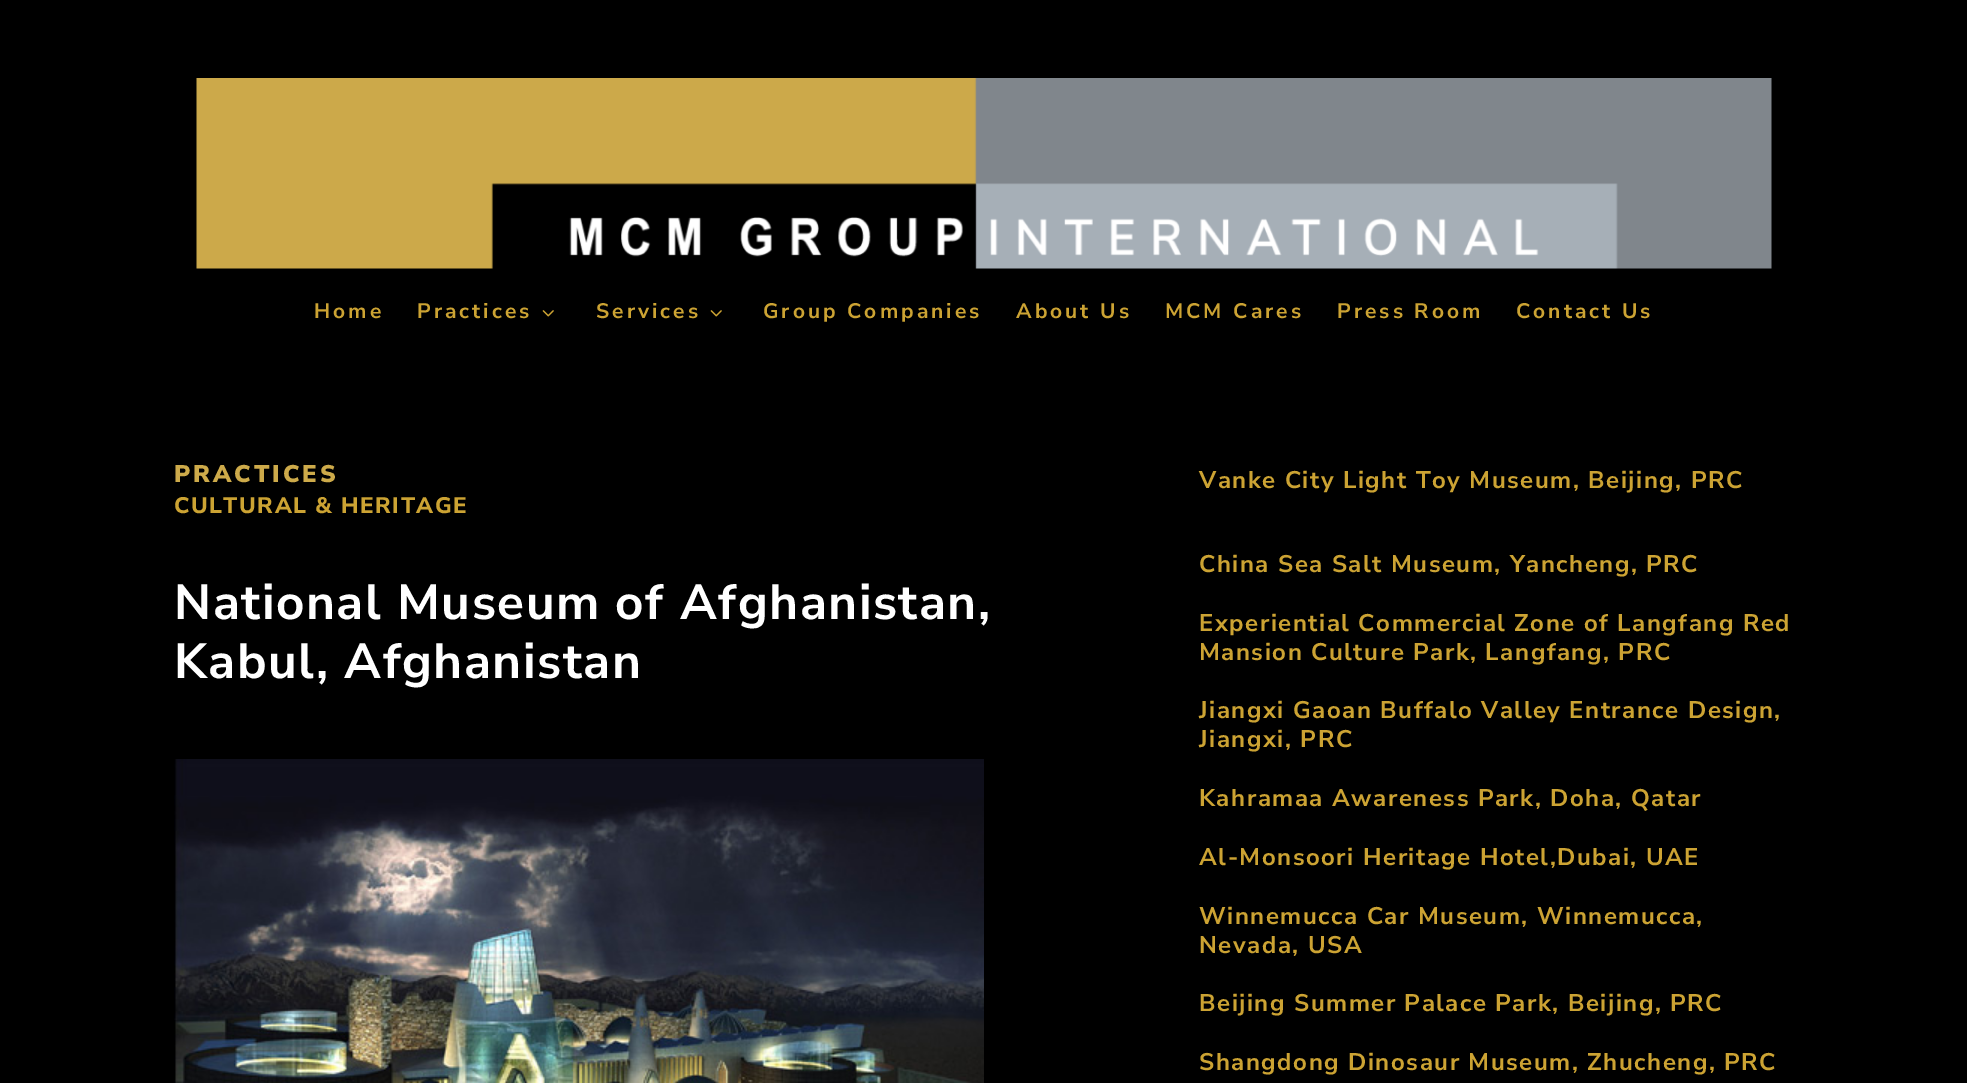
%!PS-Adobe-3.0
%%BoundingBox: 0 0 1967 1083
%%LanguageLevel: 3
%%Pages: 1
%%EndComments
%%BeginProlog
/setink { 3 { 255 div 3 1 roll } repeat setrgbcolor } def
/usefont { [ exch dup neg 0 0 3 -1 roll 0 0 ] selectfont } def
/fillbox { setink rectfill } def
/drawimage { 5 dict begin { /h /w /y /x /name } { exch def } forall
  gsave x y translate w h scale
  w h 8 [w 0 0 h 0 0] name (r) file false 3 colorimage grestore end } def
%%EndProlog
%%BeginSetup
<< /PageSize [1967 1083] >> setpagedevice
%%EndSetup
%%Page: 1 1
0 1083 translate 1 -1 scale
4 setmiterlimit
0 0 1967 1083 0 0 0 fillbox
(assets/img1.rgb) 196 78 1576 191 drawimage
/NunitoSans-Bold 21 usefont
204 163 51 setink
314 318 moveto 3 0 (Home) ashow
417 318 moveto 3 0 (Practices) ashow
(assets/img2.rgb) 542 310 12 7 drawimage
596 318 moveto 3 0 (Services) ashow
(assets/img2.rgb) 710 310 12 7 drawimage
763 318 moveto 3 0 (Group Companies) ashow
1016 318 moveto 3 0 (About Us) ashow
1165 318 moveto 3 0 (MCM Cares) ashow
1337 318 moveto 3 0 (Press Room) ashow
1516 318 moveto 3 0 (Contact Us) ashow
/NunitoSans-Black 24 usefont
205 170 74 setink
174 482 moveto 3 0 (PRACTICES) ashow
/NunitoSans-ExtraBold 22.5 usefont
204 163 51 setink
174 513 moveto 1.5 0 (CULTURAL & HERITAGE) ashow
/NunitoSans-Bold 49.5 usefont
255 255 255 setink
174 619 moveto 1.5 0 (National Museum of Afghanistan,) ashow
174 678 moveto 1.5 0 (Kabul, Afghanistan) ashow
(assets/img3.rgb) 174 759 810 324 drawimage
/NunitoSans-Bold 24 usefont
204 163 51 setink
1199 488 moveto 1.5 0 (Vanke City Light Toy Museum, Beijing, PRC) ashow
1199 572 moveto 1.5 0 (China Sea Salt Museum, Yancheng, PRC) ashow
1199 631 moveto 1.5 0 (Experiential Commercial Zone of Langfang Red) ashow
1199 660 moveto 1.5 0 (Mansion Culture Park, Langfang, PRC) ashow
1199 718 moveto 1.5 0 (Jiangxi Gaoan Buffalo Valley Entrance Design,) ashow
1199 747 moveto 1.5 0 (Jiangxi, PRC) ashow
1199 806 moveto 1.5 0 (Kahramaa Awareness Park, Doha, Qatar) ashow
1199 865 moveto 1.5 0 (Al-Monsoori Heritage Hotel,Dubai, UAE) ashow
1199 924 moveto 1.5 0 (Winnemucca Car Museum, Winnemucca,) ashow
1199 953 moveto 1.5 0 (Nevada, USA) ashow
1199 1011 moveto 1.5 0 (Beijing Summer Palace Park, Beijing, PRC) ashow
1199 1070 moveto 1.5 0 (Shangdong Dinosaur Museum, Zhucheng, PRC) ashow
showpage
%%EOF
